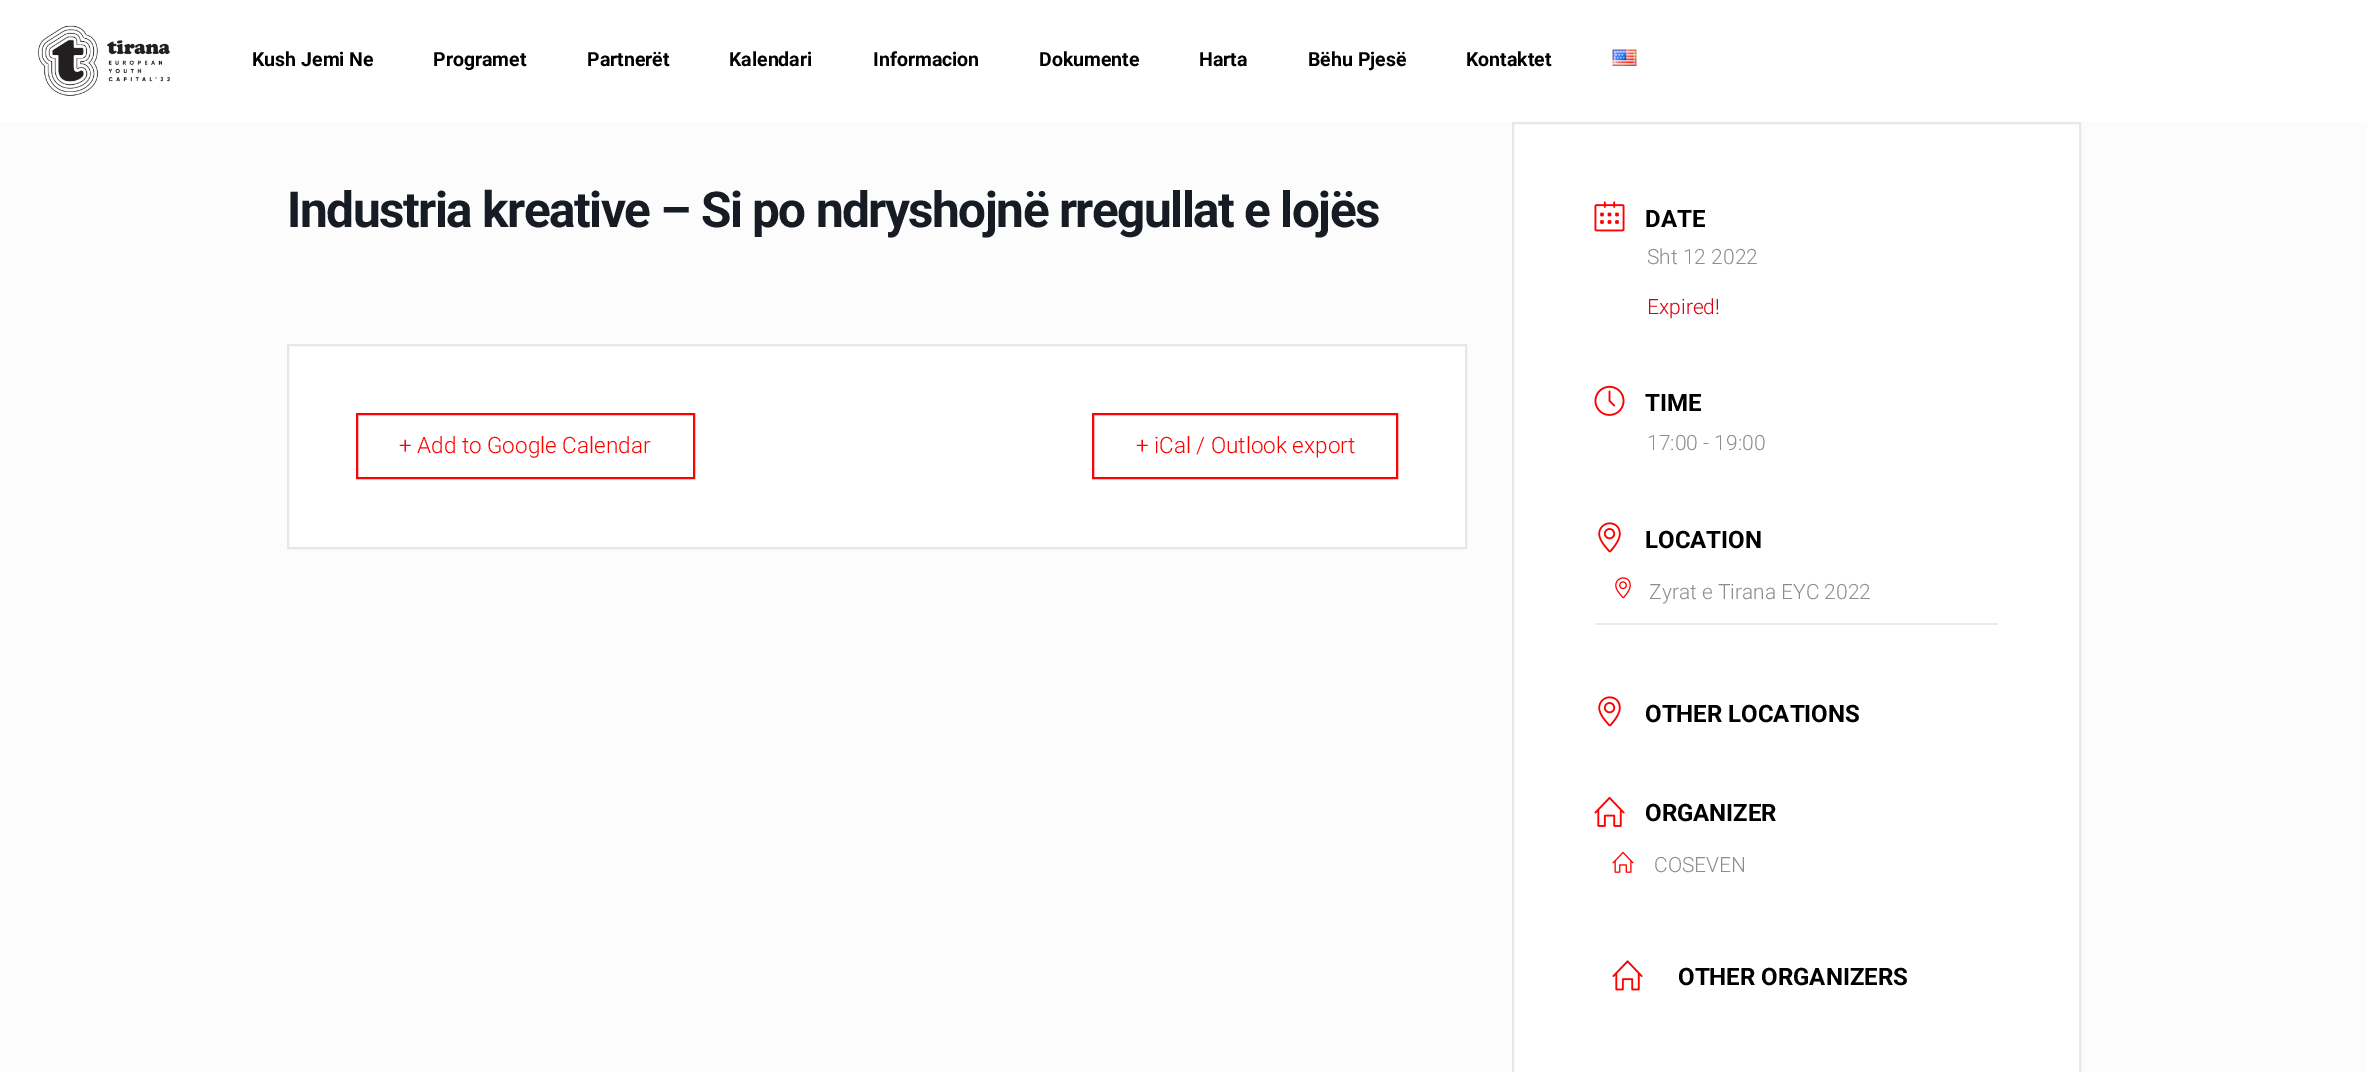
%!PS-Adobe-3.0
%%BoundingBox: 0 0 2367 1072
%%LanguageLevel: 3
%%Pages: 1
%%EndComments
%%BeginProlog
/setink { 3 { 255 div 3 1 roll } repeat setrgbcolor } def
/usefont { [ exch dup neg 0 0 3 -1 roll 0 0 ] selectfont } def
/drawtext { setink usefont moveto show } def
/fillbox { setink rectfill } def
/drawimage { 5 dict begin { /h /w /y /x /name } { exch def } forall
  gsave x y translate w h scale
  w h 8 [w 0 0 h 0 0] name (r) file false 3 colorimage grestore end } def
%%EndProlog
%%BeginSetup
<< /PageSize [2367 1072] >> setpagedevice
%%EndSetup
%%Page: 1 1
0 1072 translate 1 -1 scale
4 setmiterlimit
0 0 2367 1072 252 252 252 fillbox
0 0 2367 122 255 255 255 fillbox
(assets/img1.rgb) 38 25 132 71 drawimage
(Kush Jemi Ne) 252 66 /Roboto-Bold 19.5 0 0 0 drawtext
(Programet) 433 66 /Roboto-Bold 19.5 0 0 0 drawtext
(Partnerët) 587 66 /Roboto-Bold 19.5 0 0 0 drawtext
(Kalendari) 729 66 /Roboto-Bold 19.5 0 0 0 drawtext
(Informacion) 873 66 /Roboto-Bold 19.5 0 0 0 drawtext
(Dokumente) 1039 66 /Roboto-Bold 19.5 0 0 0 drawtext
(Harta) 1199 66 /Roboto-Bold 19.5 0 0 0 drawtext
(Bëhu Pjesë) 1308 66 /Roboto-Bold 19.5 0 0 0 drawtext
(Kontaktet) 1466 66 /Roboto-Bold 19.5 0 0 0 drawtext
(assets/img2.rgb) 1612 49 25 17 drawimage
/Roboto-Bold 49.5 usefont
23 28 36 setink
287 227 moveto -1.5 0 (Industria kreative – Si po ndryshojnë rregullat e lojës) ashow
255 255 255 setink
288 345 moveto 1466 345 lineto 1466 548 lineto 288 548 lineto closepath gsave fill grestore
230 231 232 setink
2 setlinewidth
stroke
255 0 0 setink
357 414 337 64 rectstroke
(+ Add to Google Calendar) 399 453 /Roboto-Light 22.5 255 0 0 drawtext
1093 414 304 64 rectstroke
(+ iCal / Outlook export) 1136 453 /Roboto-Light 22.5 255 0 0 drawtext
255 255 255 setink
1513 123 moveto 2080 123 lineto 2080 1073 lineto 1513 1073 lineto closepath gsave fill grestore
230 231 232 setink
stroke
(assets/img3.rgb) 1594 201 31 31 drawimage
(DATE) 1645 227 /Roboto-Bold 24 0 0 0 drawtext
(Sht 12 2022) 1647 264 /Roboto-Light 21 141 141 141 drawtext
(Expired!) 1647 314 /Roboto-Light 21 216 0 12 drawtext
(assets/img4.rgb) 1594 385 31 31 drawimage
(TIME) 1645 411 /Roboto-Bold 24 0 0 0 drawtext
(17:00 - 19:00) 1647 450 /Roboto-Light 21 141 141 141 drawtext
(assets/img5.rgb) 1598 522 23 31 drawimage
(LOCATION) 1645 548 /Roboto-Bold 24 0 0 0 drawtext
(assets/img6.rgb) 1615 577 16 22 drawimage
(Zyrat e Tirana EYC 2022) 1649 599 /Roboto-Light 21 141 141 141 drawtext
1595 623 403 2 235 235 235 fillbox
(assets/img5.rgb) 1598 696 23 31 drawimage
(OTHER LOCATIONS) 1645 722 /Roboto-Bold 24 0 0 0 drawtext
(assets/img7.rgb) 1594 796 31 31 drawimage
(ORGANIZER) 1645 821 /Roboto-Bold 24 0 0 0 drawtext
(assets/img8.rgb) 1612 851 22 22 drawimage
(COSEVEN) 1654 872 /Roboto-Light 21 141 141 141 drawtext
(assets/img9.rgb) 1612 960 31 31 drawimage
(OTHER ORGANIZERS) 1678 985 /Roboto-Bold 24 0 0 0 drawtext
showpage
%%EOF
